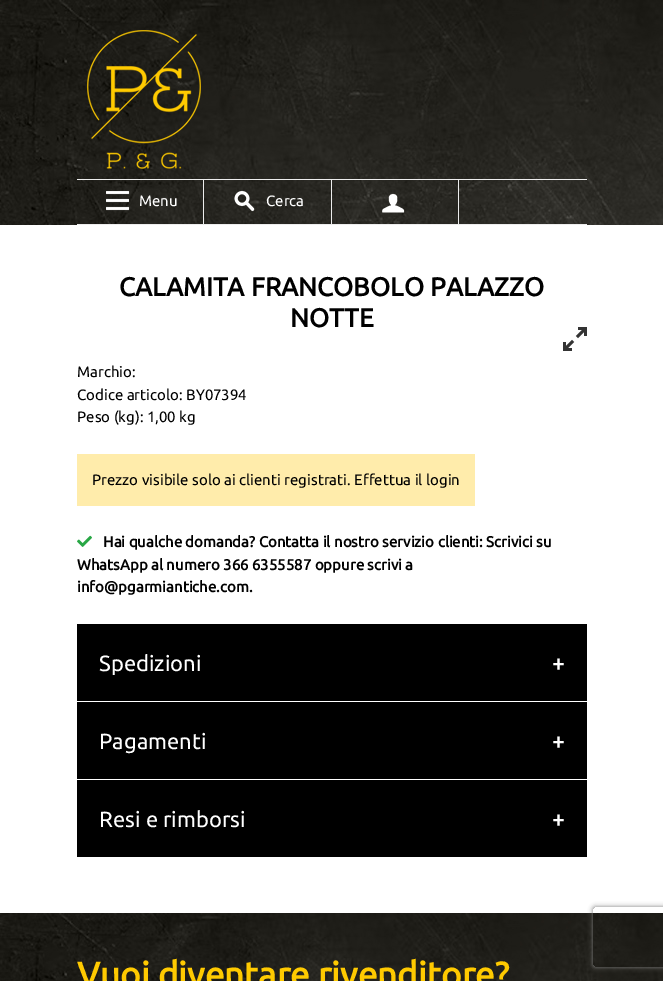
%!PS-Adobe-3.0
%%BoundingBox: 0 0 663 981
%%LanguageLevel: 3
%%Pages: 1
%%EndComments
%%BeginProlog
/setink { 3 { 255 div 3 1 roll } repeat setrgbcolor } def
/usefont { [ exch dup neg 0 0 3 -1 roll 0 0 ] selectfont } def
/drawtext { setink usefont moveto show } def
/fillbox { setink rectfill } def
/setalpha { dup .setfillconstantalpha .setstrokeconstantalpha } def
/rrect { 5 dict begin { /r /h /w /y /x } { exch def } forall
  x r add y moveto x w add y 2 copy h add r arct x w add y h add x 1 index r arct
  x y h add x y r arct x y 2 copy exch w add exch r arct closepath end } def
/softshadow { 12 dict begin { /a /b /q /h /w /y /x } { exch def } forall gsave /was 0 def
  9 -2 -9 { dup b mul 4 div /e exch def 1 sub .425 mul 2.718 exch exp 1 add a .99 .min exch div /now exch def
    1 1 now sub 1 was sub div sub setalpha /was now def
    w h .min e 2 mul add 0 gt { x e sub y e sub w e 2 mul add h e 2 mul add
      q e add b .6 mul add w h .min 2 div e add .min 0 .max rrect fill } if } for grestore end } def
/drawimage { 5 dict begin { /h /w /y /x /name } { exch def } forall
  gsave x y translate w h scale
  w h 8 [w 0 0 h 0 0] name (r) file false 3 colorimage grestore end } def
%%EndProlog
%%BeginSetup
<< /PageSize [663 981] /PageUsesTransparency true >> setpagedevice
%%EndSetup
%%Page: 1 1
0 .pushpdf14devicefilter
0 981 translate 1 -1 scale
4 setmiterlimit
0 0 663 981 255 255 255 fillbox
(assets/img1.rgb) 0 0 663 225 drawimage
(assets/img2.rgb) 87 30 114 139 drawimage
77 179 510 1 237 237 237 fillbox
77 224 510 1 237 237 237 fillbox
203 180 1 44 237 237 237 fillbox
(assets/img3.rgb) 106 191 24 20 drawimage
(Menu) 139 206 /Ubuntu-Regular 15 255 255 255 drawtext
331 180 1 44 237 237 237 fillbox
(assets/img4.rgb) 234 190 21 22 drawimage
(Cerca) 266 206 /Ubuntu-Regular 15 255 255 255 drawtext
458 180 1 44 237 237 237 fillbox
(assets/img5.rgb) 382 193 23 20 drawimage
(CALAMITA FRANCOBOLO PALAZZO) 119 296 /Ubuntu-Bold 26 0 0 0 drawtext
(NOTTE) 290 327 /Ubuntu-Bold 26 0 0 0 drawtext
(assets/img6.rgb) 563 327 24 24 drawimage
(Marchio:) 77 377 /Ubuntu-Regular 15 0 0 0 drawtext
(Codice articolo: BY07394) 77 400 /Ubuntu-Regular 15 0 0 0 drawtext
(Peso \(kg\): 1,00 kg) 77 422 /Ubuntu-Regular 15 0 0 0 drawtext
77 454 398 52 255 236 171 fillbox
(Prezzo visibile solo ai clienti registrati. Effettua il login) 92 485 /Ubuntu-Regular 15 0 0 0 drawtext
(assets/img7.rgb) 77 535 15 12 drawimage
(Hai qualche domanda? Contatta il nostro servizio clienti: Scrivici su) 103 547 /Ubuntu-Bold 15 0 0 0 drawtext
(WhatsApp al numero 366 6355587 oppure scrivi a) 77 570 /Ubuntu-Bold 15 0 0 0 drawtext
(info@pgarmiantiche.com.) 77 592 /Ubuntu-Bold 15 0 0 0 drawtext
77 624 510 77 0 0 0 fillbox
(Spedizioni) 99 671 /Ubuntu-Regular 22 255 255 255 drawtext
(+) 552 671 /Ubuntu-Bold 22 255 255 255 drawtext
77 702 510 77 0 0 0 fillbox
(Pagamenti) 99 749 /Ubuntu-Regular 22 255 255 255 drawtext
(+) 552 749 /Ubuntu-Bold 22 255 255 255 drawtext
77 780 510 77 0 0 0 fillbox
(Resi e rimborsi) 99 827 /Ubuntu-Regular 22 255 255 255 drawtext
(+) 552 827 /Ubuntu-Bold 22 255 255 255 drawtext
(assets/img8.rgb) 0 913 663 68 drawimage
(Vuoi diventare rivenditore?) 77 987 /Ubuntu-Bold 35 255 202 0 drawtext
gsave
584 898 moveto 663 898 lineto 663 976 lineto 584 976 lineto closepath 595 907 moveto 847 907 lineto 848 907 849 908 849 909 curveto 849 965 lineto 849 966 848 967 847 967 curveto 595 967 lineto 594 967 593 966 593 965 curveto 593 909 lineto 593 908 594 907 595 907 curveto closepath eoclip newpath
128 128 128 setink
593 907 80 60 2 2.5 1 softshadow
grestore
.poppdf14devicefilter showpage
%%EOF
